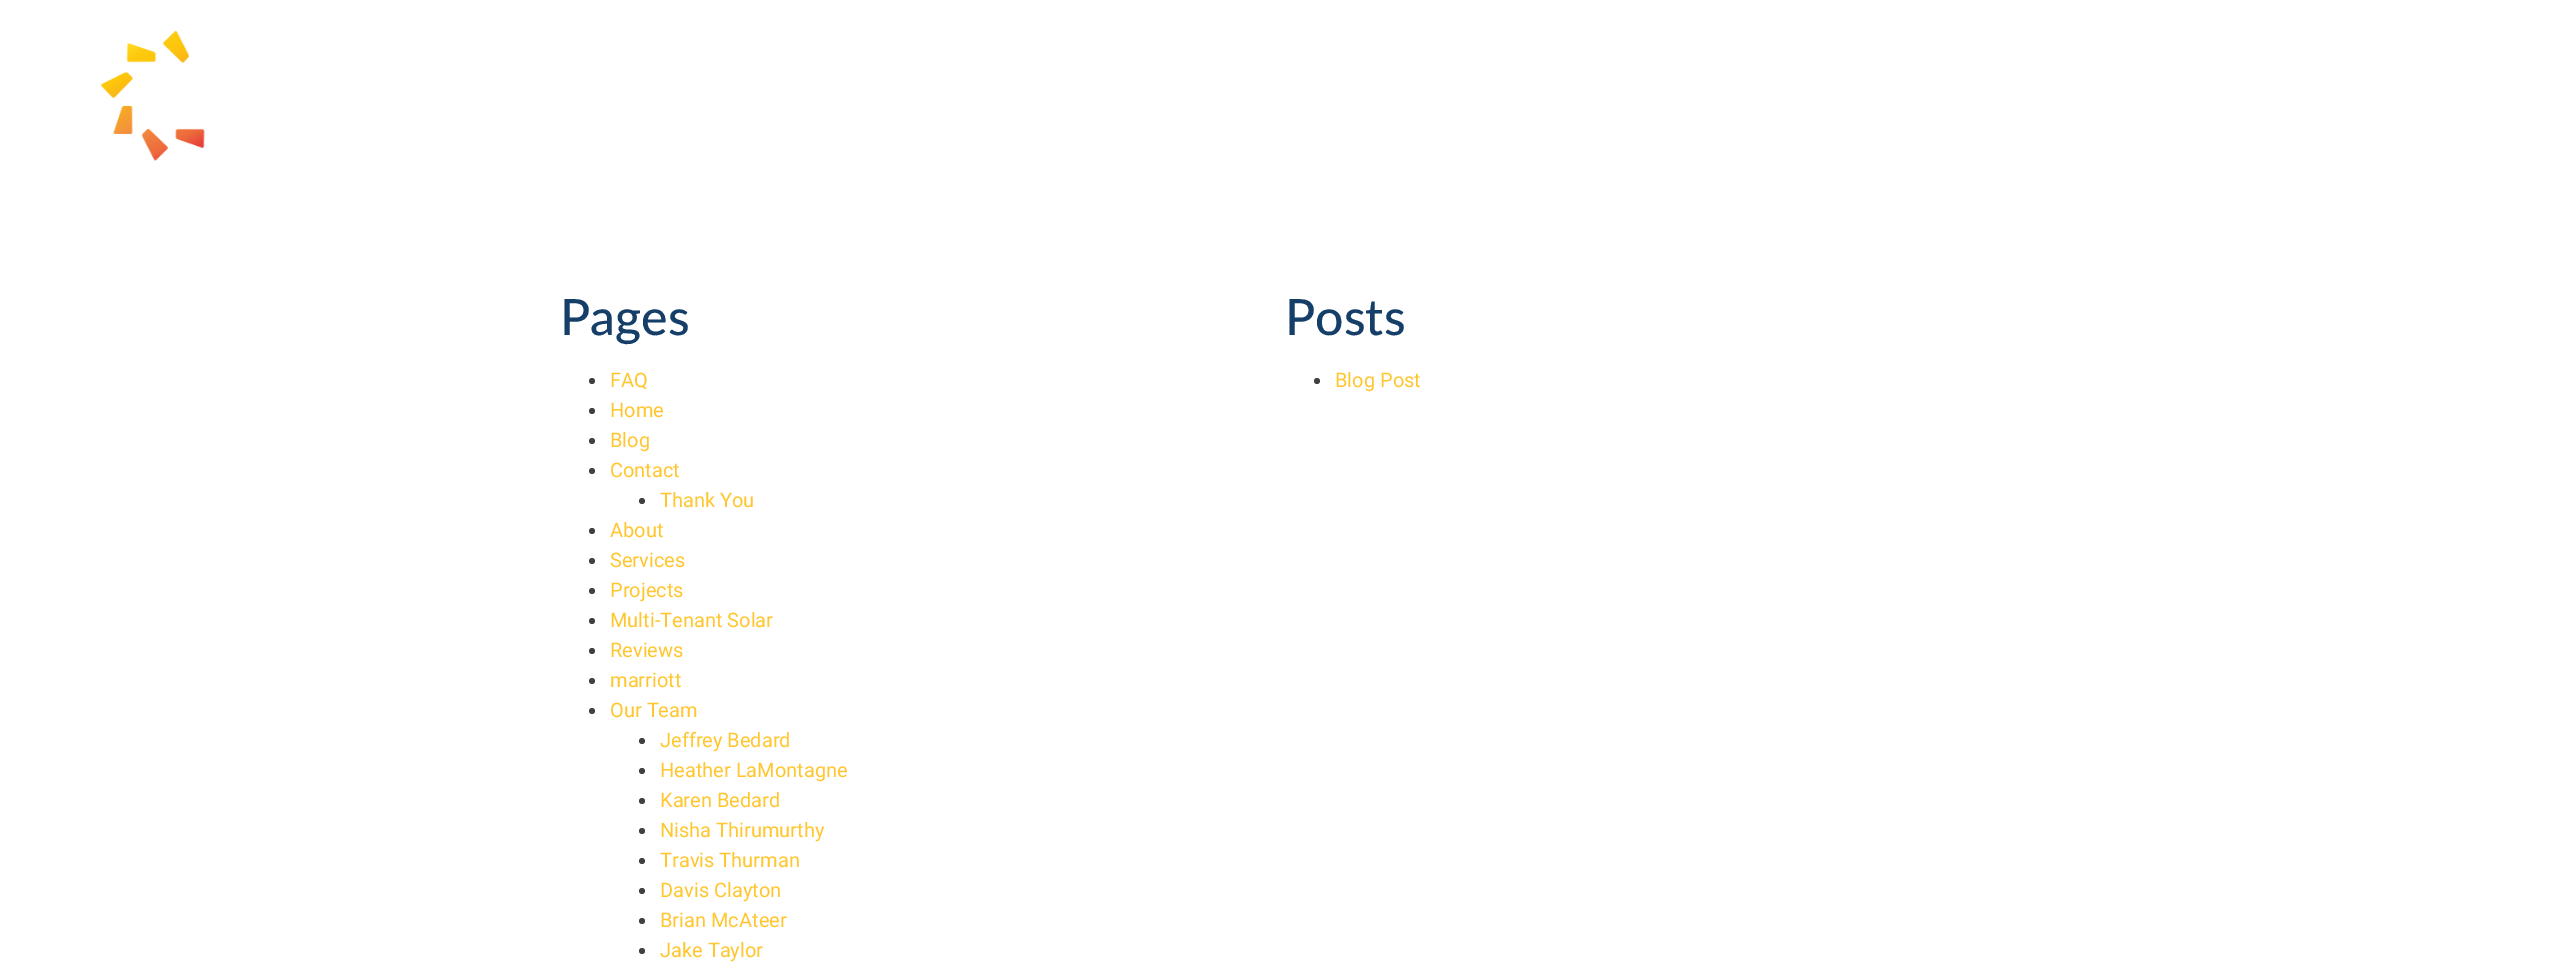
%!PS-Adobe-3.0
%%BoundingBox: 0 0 2570 968
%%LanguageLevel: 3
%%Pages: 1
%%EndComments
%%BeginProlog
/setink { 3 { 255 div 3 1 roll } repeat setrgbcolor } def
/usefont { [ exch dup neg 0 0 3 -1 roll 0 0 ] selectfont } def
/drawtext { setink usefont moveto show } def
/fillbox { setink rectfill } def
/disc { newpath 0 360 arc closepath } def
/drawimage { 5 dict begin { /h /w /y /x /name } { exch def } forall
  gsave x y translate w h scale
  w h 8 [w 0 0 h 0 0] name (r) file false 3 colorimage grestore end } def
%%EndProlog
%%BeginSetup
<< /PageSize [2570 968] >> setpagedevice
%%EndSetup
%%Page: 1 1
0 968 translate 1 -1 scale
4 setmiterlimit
0 0 2570 968 255 255 255 fillbox
(assets/img1.rgb) 100 30 105 131 drawimage
(Pages) 560 335 /Lato-Medium 50 21 63 105 drawtext
65 65 65 setink
592 381 3 disc fill
(FAQ) 610 387 /Roboto-Regular 20 255 198 46 drawtext
65 65 65 setink
592 411 3 disc fill
(Home) 610 417 /Roboto-Regular 20 255 198 46 drawtext
65 65 65 setink
592 441 3 disc fill
(Blog) 610 447 /Roboto-Regular 20 255 198 46 drawtext
65 65 65 setink
592 471 3 disc fill
(Contact) 610 477 /Roboto-Regular 20 255 198 46 drawtext
65 65 65 setink
642 501 3 disc fill
(Thank You) 660 507 /Roboto-Regular 20 255 198 46 drawtext
65 65 65 setink
592 531 3 disc fill
(About) 610 537 /Roboto-Regular 20 255 198 46 drawtext
65 65 65 setink
592 561 3 disc fill
(Services) 610 567 /Roboto-Regular 20 255 198 46 drawtext
65 65 65 setink
592 591 3 disc fill
(Projects) 610 597 /Roboto-Regular 20 255 198 46 drawtext
65 65 65 setink
592 621 3 disc fill
(Multi-Tenant Solar) 610 627 /Roboto-Regular 20 255 198 46 drawtext
65 65 65 setink
592 651 3 disc fill
(Reviews) 610 657 /Roboto-Regular 20 255 198 46 drawtext
65 65 65 setink
592 681 3 disc fill
(marriott) 610 687 /Roboto-Regular 20 255 198 46 drawtext
65 65 65 setink
592 711 3 disc fill
(Our Team) 610 717 /Roboto-Regular 20 255 198 46 drawtext
65 65 65 setink
642 741 3 disc fill
(Jeffrey Bedard) 660 747 /Roboto-Regular 20 255 198 46 drawtext
65 65 65 setink
642 771 3 disc fill
(Heather LaMontagne) 660 777 /Roboto-Regular 20 255 198 46 drawtext
65 65 65 setink
642 801 3 disc fill
(Karen Bedard) 660 807 /Roboto-Regular 20 255 198 46 drawtext
65 65 65 setink
642 831 3 disc fill
(Nisha Thirumurthy) 660 837 /Roboto-Regular 20 255 198 46 drawtext
65 65 65 setink
642 861 3 disc fill
(Travis Thurman) 660 867 /Roboto-Regular 20 255 198 46 drawtext
65 65 65 setink
642 891 3 disc fill
(Davis Clayton) 660 897 /Roboto-Regular 20 255 198 46 drawtext
65 65 65 setink
642 921 3 disc fill
(Brian McAteer) 660 927 /Roboto-Regular 20 255 198 46 drawtext
65 65 65 setink
642 951 3 disc fill
(Jake Taylor) 660 957 /Roboto-Regular 20 255 198 46 drawtext
(Posts) 1285 335 /Lato-Medium 50 21 63 105 drawtext
65 65 65 setink
1317 381 3 disc fill
(Blog Post) 1335 387 /Roboto-Regular 20 255 198 46 drawtext
showpage
%%EOF
